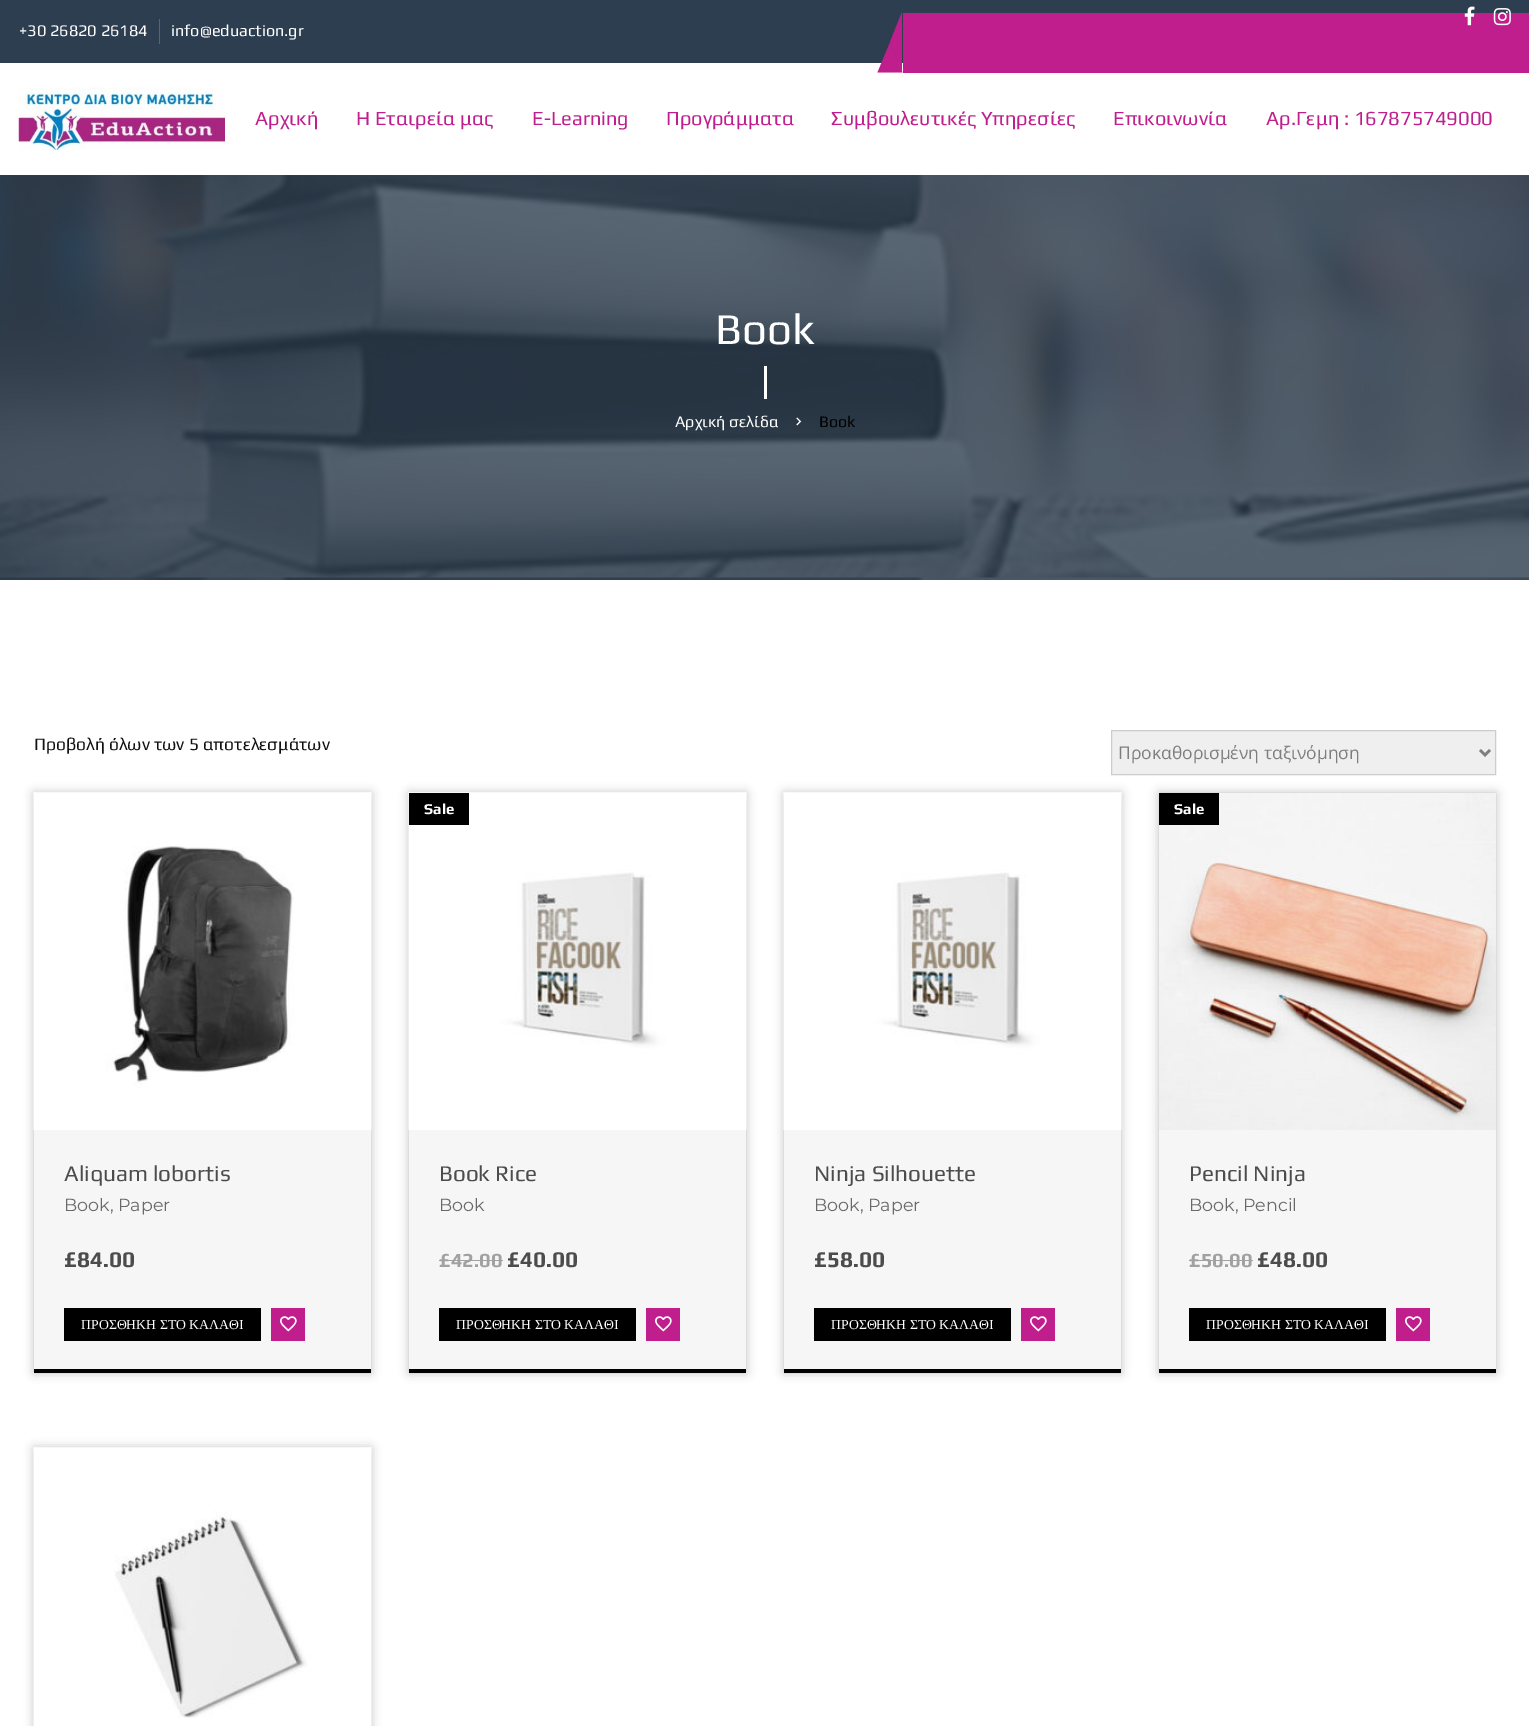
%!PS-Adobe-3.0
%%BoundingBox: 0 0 1529 1726
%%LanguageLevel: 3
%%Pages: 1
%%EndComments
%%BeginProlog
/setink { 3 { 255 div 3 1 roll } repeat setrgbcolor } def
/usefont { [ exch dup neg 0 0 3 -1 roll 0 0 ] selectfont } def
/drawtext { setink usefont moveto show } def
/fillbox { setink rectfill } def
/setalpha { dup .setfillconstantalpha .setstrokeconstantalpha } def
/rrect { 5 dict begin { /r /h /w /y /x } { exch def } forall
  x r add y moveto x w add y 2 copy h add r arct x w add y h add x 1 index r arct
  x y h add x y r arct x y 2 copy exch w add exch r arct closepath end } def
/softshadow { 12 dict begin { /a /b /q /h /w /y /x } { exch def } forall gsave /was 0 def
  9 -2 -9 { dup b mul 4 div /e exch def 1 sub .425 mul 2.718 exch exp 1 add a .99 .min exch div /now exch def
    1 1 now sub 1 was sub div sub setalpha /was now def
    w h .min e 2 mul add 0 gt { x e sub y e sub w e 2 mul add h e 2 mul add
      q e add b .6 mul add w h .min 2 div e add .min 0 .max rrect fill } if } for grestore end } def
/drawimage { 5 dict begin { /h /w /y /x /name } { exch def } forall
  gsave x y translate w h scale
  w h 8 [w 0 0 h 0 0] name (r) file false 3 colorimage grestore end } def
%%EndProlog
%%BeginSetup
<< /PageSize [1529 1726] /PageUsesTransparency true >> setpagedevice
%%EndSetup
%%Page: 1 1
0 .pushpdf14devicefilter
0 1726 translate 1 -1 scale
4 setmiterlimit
0 0 1529 1726 255 255 255 fillbox
0 0 1529 63 45 62 80 fillbox
903 13 626 60 191 30 140 fillbox
(assets/img1.rgb) 1464 6 11 20 drawimage
(assets/img2.rgb) 1493 8 18 18 drawimage
(+30 26820 26184) 19 36 /Play-Regular 16.25 255 255 255 drawtext
159 19 1 25 87 101 115 fillbox
(info@eduaction.gr) 171 36 /Play-Regular 16.25 255 255 255 drawtext
191 30 140 setink
902 12 moveto 902 72 lineto 890 42 lineto closepath fill
902.5 72.5 moveto 877.5 72.5 lineto 890 42.5 lineto closepath fill
(assets/img3.rgb) 18 87 207 63 drawimage
(Αρχική) 255 125 /Play-Regular 20 191 30 140 drawtext
(Η Εταιρεία μας) 356 125 /Play-Regular 20 191 30 140 drawtext
(E-Learning) 532 125 /Play-Regular 20 191 30 140 drawtext
(Προγράμματα) 666 125 /Play-Regular 20 191 30 140 drawtext
(Συμβουλευτικές Υπηρεσίες) 831 125 /Play-Regular 20 191 30 140 drawtext
(Επικοινωνία) 1113 125 /Play-Regular 20 191 30 140 drawtext
(Αρ.Γεμη : 167875749000) 1266 125 /Play-Regular 20 191 30 140 drawtext
(assets/img4.rgb) 0 175 1529 405 drawimage
(Book) 715 344 /Play-Regular 44 255 255 255 drawtext
764 366 3 33 255 255 255 fillbox
(Αρχική σελίδα) 675 427 /Play-Regular 16 255 255 255 drawtext
(assets/img5.rgb) 796 417 6 9 drawimage
(Book) 819 427 /Play-Regular 16 0 0 0 drawtext
(Προβολή όλων των 5 αποτελεσμάτων) 34 750 /Play-Regular 17.5 17 17 17 drawtext
239 239 239 setink
1111.5 730.5 moveto 1495.5 730.5 lineto 1495.5 774.5 lineto 1111.5 774.5 lineto closepath gsave fill grestore
204 204 204 setink
stroke
126 126 126 setink
2.5 setlinewidth
1480 750 moveto 1485 755 lineto 1490 750 lineto stroke
(Προκαθορισμένη ταξινόμηση) 1118 759 /OpenSans-Regular 17.5 126 126 126 drawtext
34 30 31 setink
34 793 337 580 0 5 0.3 softshadow
(assets/img6.rgb) 33 792 339 338 drawimage
34 1130 337 239 246 246 246 fillbox
34 1369 337 4 0 0 0 fillbox
(Aliquam lobortis) 64 1181 /Play-Regular 22.5 76 76 76 drawtext
(Book, Paper) 64 1211 /Montserrat-Regular 17.5 105 105 105 drawtext
(£84.00) 64 1267 /Play-Bold 22.5 76 76 76 drawtext
64 1308 197 33 0 0 0 fillbox
(ΠΡΟΣΘΗΚΗ ΣΤΟ ΚΑΛΑΘΙ) 81 1329 /LiberationSerif-Regular 13.75 255 255 255 drawtext
271 1308 34 33 191 30 140 fillbox
(assets/img7.rgb) 280 1316 17 16 drawimage
34 30 31 setink
409 793 337 580 0 5 0.3 softshadow
(assets/img8.rgb) 408 792 339 338 drawimage
409 793 60 32 0 0 0 fillbox
(Sale) 424 814 /Play-Bold 15 255 255 255 drawtext
409 1130 337 239 246 246 246 fillbox
409 1369 337 4 0 0 0 fillbox
(Book Rice) 439 1181 /Play-Regular 22.5 76 76 76 drawtext
(Book) 439 1211 /Montserrat-Regular 17.5 105 105 105 drawtext
(£42.00) 439 1267 /Play-Bold 20 161 161 161 drawtext
439 1260 64 1 161 161 161 fillbox
(£40.00) 507 1267 /Play-Bold 22.5 76 76 76 drawtext
439 1308 197 33 0 0 0 fillbox
(ΠΡΟΣΘΗΚΗ ΣΤΟ ΚΑΛΑΘΙ) 456 1329 /LiberationSerif-Regular 13.75 255 255 255 drawtext
646 1308 34 33 191 30 140 fillbox
(assets/img7.rgb) 655 1316 17 16 drawimage
34 30 31 setink
784 793 337 580 0 5 0.3 softshadow
(assets/img9.rgb) 783 792 339 338 drawimage
784 1130 337 239 246 246 246 fillbox
784 1369 337 4 0 0 0 fillbox
(Ninja Silhouette) 814 1181 /Play-Regular 22.5 76 76 76 drawtext
(Book, Paper) 814 1211 /Montserrat-Regular 17.5 105 105 105 drawtext
(£58.00) 814 1267 /Play-Bold 22.5 76 76 76 drawtext
814 1308 197 33 0 0 0 fillbox
(ΠΡΟΣΘΗΚΗ ΣΤΟ ΚΑΛΑΘΙ) 831 1329 /LiberationSerif-Regular 13.75 255 255 255 drawtext
1021 1308 34 33 191 30 140 fillbox
(assets/img7.rgb) 1030 1316 17 16 drawimage
34 30 31 setink
1159 793 337 580 0 5 0.3 softshadow
(assets/img10.rgb) 1159 793 337 337 drawimage
1159 793 60 32 0 0 0 fillbox
(Sale) 1174 814 /Play-Bold 15 255 255 255 drawtext
1159 1130 337 239 246 246 246 fillbox
1159 1369 337 4 0 0 0 fillbox
(Pencil Ninja) 1189 1181 /Play-Regular 22.5 76 76 76 drawtext
(Book, Pencil) 1189 1211 /Montserrat-Regular 17.5 105 105 105 drawtext
(£50.00) 1189 1267 /Play-Bold 20 161 161 161 drawtext
1189 1260 64 1 161 161 161 fillbox
(£48.00) 1257 1267 /Play-Bold 22.5 76 76 76 drawtext
1189 1308 197 33 0 0 0 fillbox
(ΠΡΟΣΘΗΚΗ ΣΤΟ ΚΑΛΑΘΙ) 1206 1329 /LiberationSerif-Regular 13.75 255 255 255 drawtext
1396 1308 34 33 191 30 140 fillbox
(assets/img7.rgb) 1405 1316 17 16 drawimage
34 30 31 setink
34 1448 337 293 0 5 0.3 softshadow
(assets/img11.rgb) 33 1447 339 279 drawimage
.poppdf14devicefilter showpage
%%EOF
